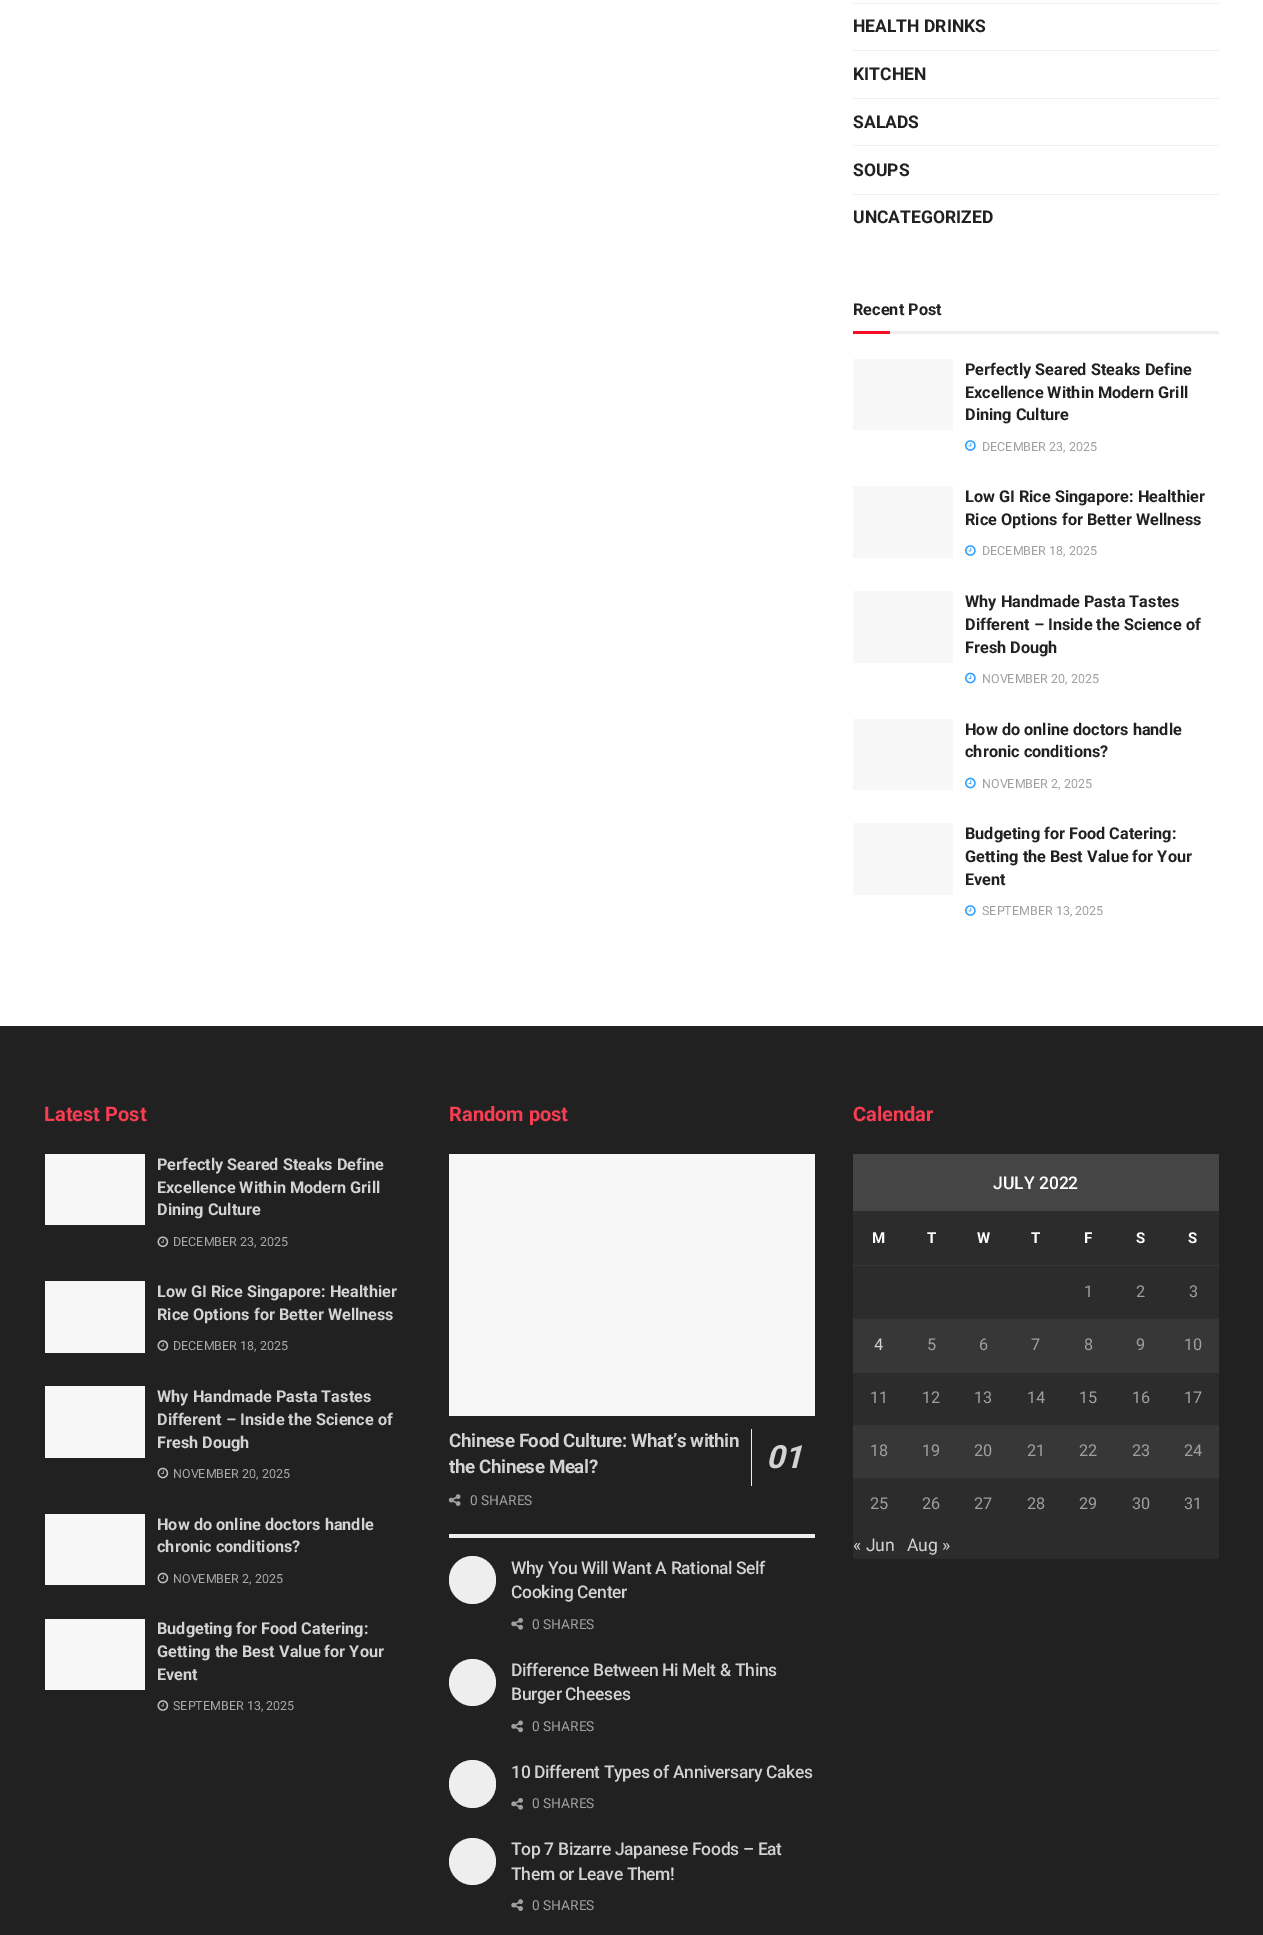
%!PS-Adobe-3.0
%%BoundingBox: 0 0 1263 1935
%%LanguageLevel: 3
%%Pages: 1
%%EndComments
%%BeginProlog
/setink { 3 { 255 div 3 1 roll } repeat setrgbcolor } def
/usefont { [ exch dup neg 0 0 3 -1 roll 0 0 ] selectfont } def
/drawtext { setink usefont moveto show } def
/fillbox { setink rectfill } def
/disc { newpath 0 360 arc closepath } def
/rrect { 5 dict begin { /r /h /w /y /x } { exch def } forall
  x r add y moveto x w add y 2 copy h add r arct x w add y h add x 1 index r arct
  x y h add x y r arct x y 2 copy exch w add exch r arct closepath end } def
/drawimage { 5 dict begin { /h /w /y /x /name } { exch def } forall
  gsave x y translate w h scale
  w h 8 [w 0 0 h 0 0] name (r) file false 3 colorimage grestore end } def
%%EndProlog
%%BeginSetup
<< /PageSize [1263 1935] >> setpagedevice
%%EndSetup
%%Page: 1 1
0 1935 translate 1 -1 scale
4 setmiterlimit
0 0 1263 1935 255 255 255 fillbox
853 3 366 1 238 238 238 fillbox
(HEALTH DRINKS) 853 32 /Roboto-Bold 17.5 33 33 33 drawtext
853 50 366 1 238 238 238 fillbox
(KITCHEN) 853 80 /Roboto-Bold 17.5 33 33 33 drawtext
853 98 366 1 238 238 238 fillbox
(SALADS) 853 128 /Roboto-Bold 17.5 33 33 33 drawtext
853 145 366 1 238 238 238 fillbox
(SOUPS) 853 176 /Roboto-Bold 17.5 33 33 33 drawtext
853 194 366 1 238 238 238 fillbox
(UNCATEGORIZED) 853 223 /Roboto-Bold 17.5 33 33 33 drawtext
890 331 329 3 238 238 238 fillbox
(Recent Post) 853 315 /Roboto-Bold 16.25 33 33 33 drawtext
853 331 37 3 247 13 40 fillbox
853 359 100 71 247 247 247 fillbox
(Perfectly Seared Steaks Define) 965 375 /Roboto-Bold 16.25 33 33 33 drawtext
(Excellence Within Modern Grill) 965 398 /Roboto-Bold 16.25 33 33 33 drawtext
(Dining Culture) 965 420 /Roboto-Bold 16.25 33 33 33 drawtext
(assets/img1.rgb) 965 440 11 11 drawimage
(DECEMBER 23, 2025) 982 451 /Roboto-Regular 12.5 160 160 160 drawtext
853 486 100 72 247 247 247 fillbox
(Low GI Rice Singapore: Healthier) 965 502 /Roboto-Bold 16.25 33 33 33 drawtext
(Rice Options for Better Wellness) 965 525 /Roboto-Bold 16.25 33 33 33 drawtext
(assets/img1.rgb) 965 545 11 11 drawimage
(DECEMBER 18, 2025) 982 555 /Roboto-Regular 12.5 160 160 160 drawtext
853 591 100 72 247 247 247 fillbox
(Why Handmade Pasta Tastes) 965 607 /Roboto-Bold 16.25 33 33 33 drawtext
(Different – Inside the Science of) 965 630 /Roboto-Bold 16.25 33 33 33 drawtext
(Fresh Dough) 965 653 /Roboto-Bold 16.25 33 33 33 drawtext
(assets/img2.rgb) 965 672 11 12 drawimage
(NOVEMBER 20, 2025) 982 683 /Roboto-Regular 12.5 160 160 160 drawtext
853 719 100 71 247 247 247 fillbox
(How do online doctors handle) 965 735 /Roboto-Bold 16.25 33 33 33 drawtext
(chronic conditions?) 965 757 /Roboto-Bold 16.25 33 33 33 drawtext
(assets/img2.rgb) 965 777 11 12 drawimage
(NOVEMBER 2, 2025) 982 788 /Roboto-Regular 12.5 160 160 160 drawtext
853 823 100 72 247 247 247 fillbox
(Budgeting for Food Catering:) 965 839 /Roboto-Bold 16.25 33 33 33 drawtext
(Getting the Best Value for Your) 965 862 /Roboto-Bold 16.25 33 33 33 drawtext
(Event) 965 885 /Roboto-Bold 16.25 33 33 33 drawtext
(assets/img1.rgb) 965 905 11 11 drawimage
(SEPTEMBER 13, 2025) 982 915 /Roboto-Regular 12.5 160 160 160 drawtext
0 1026 1263 909 33 33 33 fillbox
1219 1265 1 1 44 44 44 fillbox
(Latest Post) 44 1121 /Roboto-Bold 20 249 61 83 drawtext
45 1154 100 71 247 247 247 fillbox
(Perfectly Seared Steaks Define) 157 1170 /Roboto-Bold 16.25 211 211 211 drawtext
(Excellence Within Modern Grill) 157 1193 /Roboto-Bold 16.25 211 211 211 drawtext
(Dining Culture) 157 1215 /Roboto-Bold 16.25 211 211 211 drawtext
(assets/img3.rgb) 157 1236 12 12 drawimage
(DECEMBER 23, 2025) 173 1246 /Roboto-Regular 12.5 168 168 170 drawtext
45 1281 100 72 247 247 247 fillbox
(Low GI Rice Singapore: Healthier) 157 1297 /Roboto-Bold 16.25 211 211 211 drawtext
(Rice Options for Better Wellness) 157 1320 /Roboto-Bold 16.25 211 211 211 drawtext
(assets/img4.rgb) 157 1340 12 11 drawimage
(DECEMBER 18, 2025) 173 1350 /Roboto-Regular 12.5 168 168 170 drawtext
45 1386 100 72 247 247 247 fillbox
(Why Handmade Pasta Tastes) 157 1402 /Roboto-Bold 16.25 211 211 211 drawtext
(Different – Inside the Science of) 157 1425 /Roboto-Bold 16.25 211 211 211 drawtext
(Fresh Dough) 157 1448 /Roboto-Bold 16.25 211 211 211 drawtext
(assets/img5.rgb) 157 1467 12 12 drawimage
(NOVEMBER 20, 2025) 173 1478 /Roboto-Regular 12.5 168 168 170 drawtext
45 1514 100 71 247 247 247 fillbox
(How do online doctors handle) 157 1530 /Roboto-Bold 16.25 211 211 211 drawtext
(chronic conditions?) 157 1552 /Roboto-Bold 16.25 211 211 211 drawtext
(assets/img5.rgb) 157 1572 12 12 drawimage
(NOVEMBER 2, 2025) 173 1583 /Roboto-Regular 12.5 168 168 170 drawtext
45 1619 100 71 247 247 247 fillbox
(Budgeting for Food Catering:) 157 1634 /Roboto-Bold 16.25 211 211 211 drawtext
(Getting the Best Value for Your) 157 1657 /Roboto-Bold 16.25 211 211 211 drawtext
(Event) 157 1680 /Roboto-Bold 16.25 211 211 211 drawtext
(assets/img4.rgb) 157 1700 12 11 drawimage
(SEPTEMBER 13, 2025) 173 1710 /Roboto-Regular 12.5 168 168 170 drawtext
(Random post) 449 1121 /Roboto-Bold 20 249 61 83 drawtext
449 1534 366 4 238 238 238 fillbox
449 1154 366 262 247 247 247 fillbox
/Roboto-Bold 18.75 usefont
211 211 211 setink
449 1447 moveto -0.4 0 (Chinese Food Culture: What’s within) ashow
449 1473 moveto -0.4 0 (the Chinese Meal?) ashow
751 1429 1 57 238 238 238 fillbox
/Roboto-BoldItalic 32 usefont
211 211 211 setink
766 1468 moveto -0.4 0 (01) ashow
(assets/img6.rgb) 448 1494 13 12 drawimage
(0 SHARES) 470 1505 /Roboto-Regular 13.75 160 160 160 drawtext
238 238 238 setink
449 1556 47 48 23.5 rrect fill
/Roboto-Medium 17.5 usefont
211 211 211 setink
511 1574 moveto -0.35 0 (Why You Will Want A Rational Self) ashow
511 1598 moveto -0.35 0 (Cooking Center) ashow
(assets/img7.rgb) 511 1618 12 12 drawimage
(0 SHARES) 532 1629 /Roboto-Regular 13.75 160 160 160 drawtext
238 238 238 setink
472.5 1682.5 23.5 disc fill
/Roboto-Medium 17.5 usefont
211 211 211 setink
511 1676 moveto -0.35 0 (Difference Between Hi Melt & Thins) ashow
511 1700 moveto -0.35 0 (Burger Cheeses) ashow
(assets/img8.rgb) 511 1720 12 13 drawimage
(0 SHARES) 532 1731 /Roboto-Regular 13.75 160 160 160 drawtext
238 238 238 setink
449 1760 47 48 23.5 rrect fill
/Roboto-Medium 17.5 usefont
211 211 211 setink
511 1778 moveto -0.35 0 (10 Different Types of Anniversary Cakes) ashow
(assets/img7.rgb) 511 1798 12 12 drawimage
(0 SHARES) 532 1808 /Roboto-Regular 13.75 160 160 160 drawtext
238 238 238 setink
472.5 1861.5 23.5 disc fill
/Roboto-Medium 17.5 usefont
211 211 211 setink
511 1855 moveto -0.35 0 (Top 7 Bizarre Japanese Foods – Eat) ashow
511 1880 moveto -0.35 0 (Them or Leave Them!) ashow
(assets/img9.rgb) 511 1899 12 12 drawimage
(0 SHARES) 532 1910 /Roboto-Regular 13.75 160 160 160 drawtext
(Calendar) 853 1121 /Roboto-Bold 20 249 61 83 drawtext
853 1211 366 348 44 44 44 fillbox
853 1265 366 1 55 55 55 fillbox
853 1154 366 57 69 69 69 fillbox
(JULY 2022) 993 1189 /Roboto-Medium 17.5 255 255 255 drawtext
(M) 872 1243 /Roboto-Bold 15 255 255 255 drawtext
(T) 927 1243 /Roboto-Bold 15 255 255 255 drawtext
(W) 977 1243 /Roboto-Bold 15 255 255 255 drawtext
(T) 1031 1243 /Roboto-Bold 15 255 255 255 drawtext
(F) 1084 1243 /Roboto-Bold 15 255 255 255 drawtext
(S) 1136 1243 /Roboto-Bold 15 255 255 255 drawtext
(S) 1188 1243 /Roboto-Bold 15 255 255 255 drawtext
(1) 1084 1297 /Roboto-Regular 16.25 160 160 160 drawtext
(2) 1136 1297 /Roboto-Regular 16.25 160 160 160 drawtext
(3) 1189 1297 /Roboto-Regular 16.25 160 160 160 drawtext
853 1319 366 54 55 55 55 fillbox
(4) 874 1350 /Roboto-Regular 16.25 211 211 211 drawtext
(5) 927 1350 /Roboto-Regular 16.25 160 160 160 drawtext
(6) 979 1350 /Roboto-Regular 16.25 160 160 160 drawtext
(7) 1031 1350 /Roboto-Regular 16.25 160 160 160 drawtext
(8) 1084 1350 /Roboto-Regular 16.25 160 160 160 drawtext
(9) 1136 1350 /Roboto-Regular 16.25 160 160 160 drawtext
(10) 1184 1350 /Roboto-Regular 16.25 160 160 160 drawtext
(11) 870 1403 /Roboto-Regular 16.25 160 160 160 drawtext
(12) 922 1403 /Roboto-Regular 16.25 160 160 160 drawtext
(13) 974 1403 /Roboto-Regular 16.25 160 160 160 drawtext
(14) 1027 1403 /Roboto-Regular 16.25 160 160 160 drawtext
(15) 1079 1403 /Roboto-Regular 16.25 160 160 160 drawtext
(16) 1132 1403 /Roboto-Regular 16.25 160 160 160 drawtext
(17) 1184 1403 /Roboto-Regular 16.25 160 160 160 drawtext
853 1425 366 53 55 55 55 fillbox
(18) 870 1456 /Roboto-Regular 16.25 160 160 160 drawtext
(19) 922 1456 /Roboto-Regular 16.25 160 160 160 drawtext
(20) 974 1456 /Roboto-Regular 16.25 160 160 160 drawtext
(21) 1027 1456 /Roboto-Regular 16.25 160 160 160 drawtext
(22) 1079 1456 /Roboto-Regular 16.25 160 160 160 drawtext
(23) 1132 1456 /Roboto-Regular 16.25 160 160 160 drawtext
(24) 1184 1456 /Roboto-Regular 16.25 160 160 160 drawtext
(25) 870 1509 /Roboto-Regular 16.25 160 160 160 drawtext
(26) 922 1509 /Roboto-Regular 16.25 160 160 160 drawtext
(27) 974 1509 /Roboto-Regular 16.25 160 160 160 drawtext
(28) 1027 1509 /Roboto-Regular 16.25 160 160 160 drawtext
(29) 1079 1509 /Roboto-Regular 16.25 160 160 160 drawtext
(30) 1132 1509 /Roboto-Regular 16.25 160 160 160 drawtext
(31) 1184 1509 /Roboto-Regular 16.25 160 160 160 drawtext
(« Jun) 853 1551 /Roboto-Regular 17.5 211 211 211 drawtext
(Aug ») 907 1551 /Roboto-Regular 17.5 211 211 211 drawtext
showpage
%%EOF
